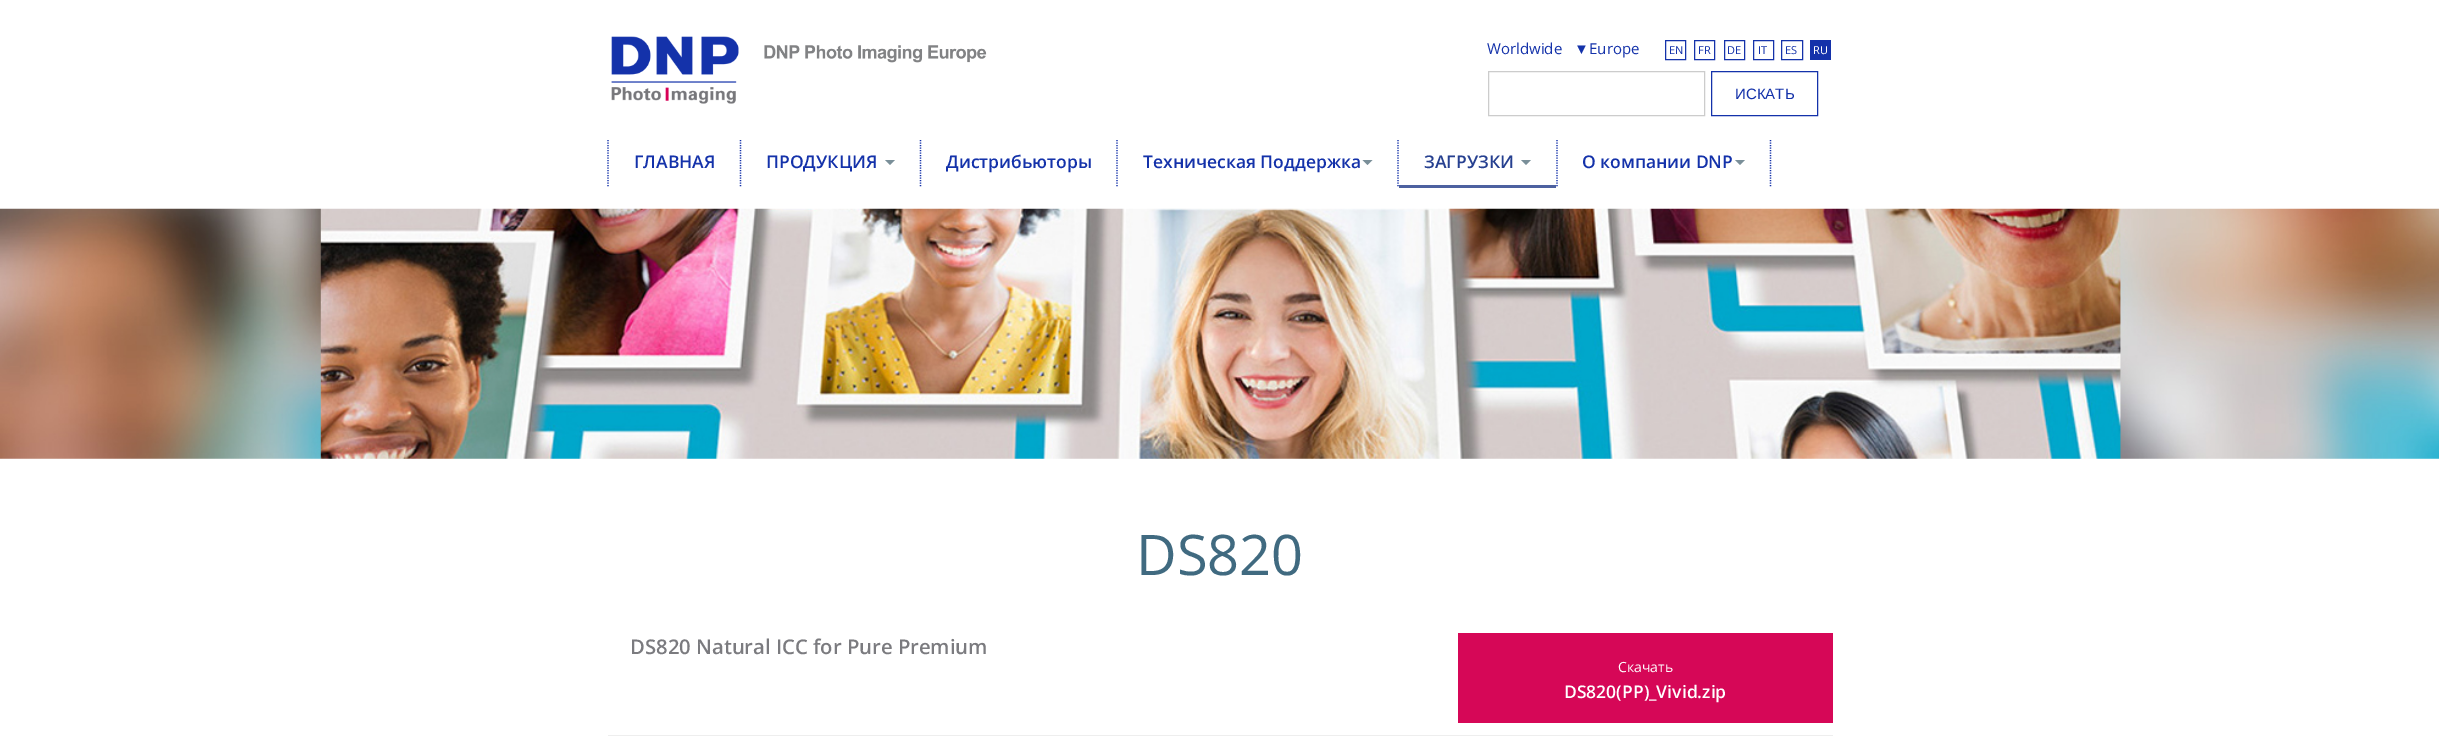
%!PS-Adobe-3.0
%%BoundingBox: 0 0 2439 739
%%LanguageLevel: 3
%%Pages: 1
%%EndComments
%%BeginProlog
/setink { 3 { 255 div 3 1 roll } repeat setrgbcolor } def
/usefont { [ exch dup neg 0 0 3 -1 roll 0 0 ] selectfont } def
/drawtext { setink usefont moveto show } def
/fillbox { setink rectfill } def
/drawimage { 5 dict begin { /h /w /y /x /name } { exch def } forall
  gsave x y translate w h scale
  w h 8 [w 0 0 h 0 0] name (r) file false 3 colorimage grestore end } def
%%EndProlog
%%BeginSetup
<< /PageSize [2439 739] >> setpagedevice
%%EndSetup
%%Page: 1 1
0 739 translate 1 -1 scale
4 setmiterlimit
0 0 2439 739 255 255 255 fillbox
(assets/img1.rgb) 611 36 128 68 drawimage
(assets/img2.rgb) 764 45 223 18 drawimage
(Worldwide) 1487 54 /OpenSans-Regular 15 20 50 170 drawtext
(▼) 1574 54 /LiberationSans-Regular 15 20 50 170 drawtext
(Europe) 1589 54 /OpenSans-Regular 15 20 50 170 drawtext
1665.5 40.5 20 19 rectstroke
(EN) 1669 54 /OpenSans-Regular 11 20 50 170 drawtext
1694.5 40.5 20 19 rectstroke
(FR) 1698 54 /OpenSans-Regular 11 20 50 170 drawtext
1724.5 40.5 20 19 rectstroke
(DE) 1727 54 /OpenSans-Regular 11 20 50 170 drawtext
1753.5 40.5 20 19 rectstroke
(IT) 1758 54 /OpenSans-Regular 11 20 50 170 drawtext
1781.5 40.5 21 19 rectstroke
(ES) 1785 54 /OpenSans-Regular 11 20 50 170 drawtext
1810 40 21 20 20 50 170 fillbox
(RU) 1813 54 /OpenSans-Regular 11 255 255 255 drawtext
204 204 204 setink
1488.5 71.5 216 44 rectstroke
20 50 170 setink
1711.5 71.5 106 44 rectstroke
(ИСКАТЬ) 1735 99 /LiberationSans-Regular 15 20 50 170 drawtext
1.2 setlinewidth
[1.25 1.25] 0 setdash
740.5 140 moveto 740.5 187.5 lineto stroke
608 140 moveto 608 187.5 lineto stroke
(ГЛАВНАЯ) 634 168 /OpenSans-SemiBold 17.5 20 50 170 drawtext
920.5 140 moveto 920.5 187.5 lineto stroke
(ПРОДУКЦИЯ) 766 168 /OpenSans-SemiBold 17.5 20 50 170 drawtext
122 143 153 setink
885 160 moveto 895 160 lineto 890 165 lineto closepath fill
20 50 170 setink
1117 140 moveto 1117 187.5 lineto stroke
(Дистрибьюторы) 946 168 /OpenSans-SemiBold 17.5 20 50 170 drawtext
1398 140 moveto 1398 187.5 lineto stroke
(Техническая Поддержка) 1143 168 /OpenSans-SemiBold 17.5 20 50 170 drawtext
122 143 153 setink
1362.5 160 moveto 1372.5 160 lineto 1367.5 165 lineto closepath fill
20 50 170 setink
1557 140 moveto 1557 187.5 lineto stroke
1399 185 157 3 77 97 160 fillbox
(ЗАГРУЗКИ) 1424 168 /OpenSans-SemiBold 17.5 38 64 144 drawtext
122 143 153 setink
1521 160 moveto 1531 160 lineto 1526 165 lineto closepath fill
20 50 170 setink
1770.5 140 moveto 1770.5 187.5 lineto stroke
(О компании DNP) 1582 168 /OpenSans-SemiBold 17.5 20 50 170 drawtext
122 143 153 setink
1735 160 moveto 1745 160 lineto 1740 165 lineto closepath fill
(assets/img3.rgb) 0 208 2439 251 drawimage
(DS820) 1136 575 /OpenSans-Regular 56 64 106 128 drawtext
608 735 1225 1 238 238 238 fillbox
(DS820 Natural ICC for Pure Premium) 630 654 /OpenSans-SemiBold 20.25 123 123 127 drawtext
1458 633 375 90 214 7 87 fillbox
(Скачать) 1618 672 /OpenSans-Regular 14 255 255 255 drawtext
(DS820\(PP\)_Vivid.zip) 1564 698 /OpenSans-SemiBold 17.5 255 255 255 drawtext
showpage
%%EOF
